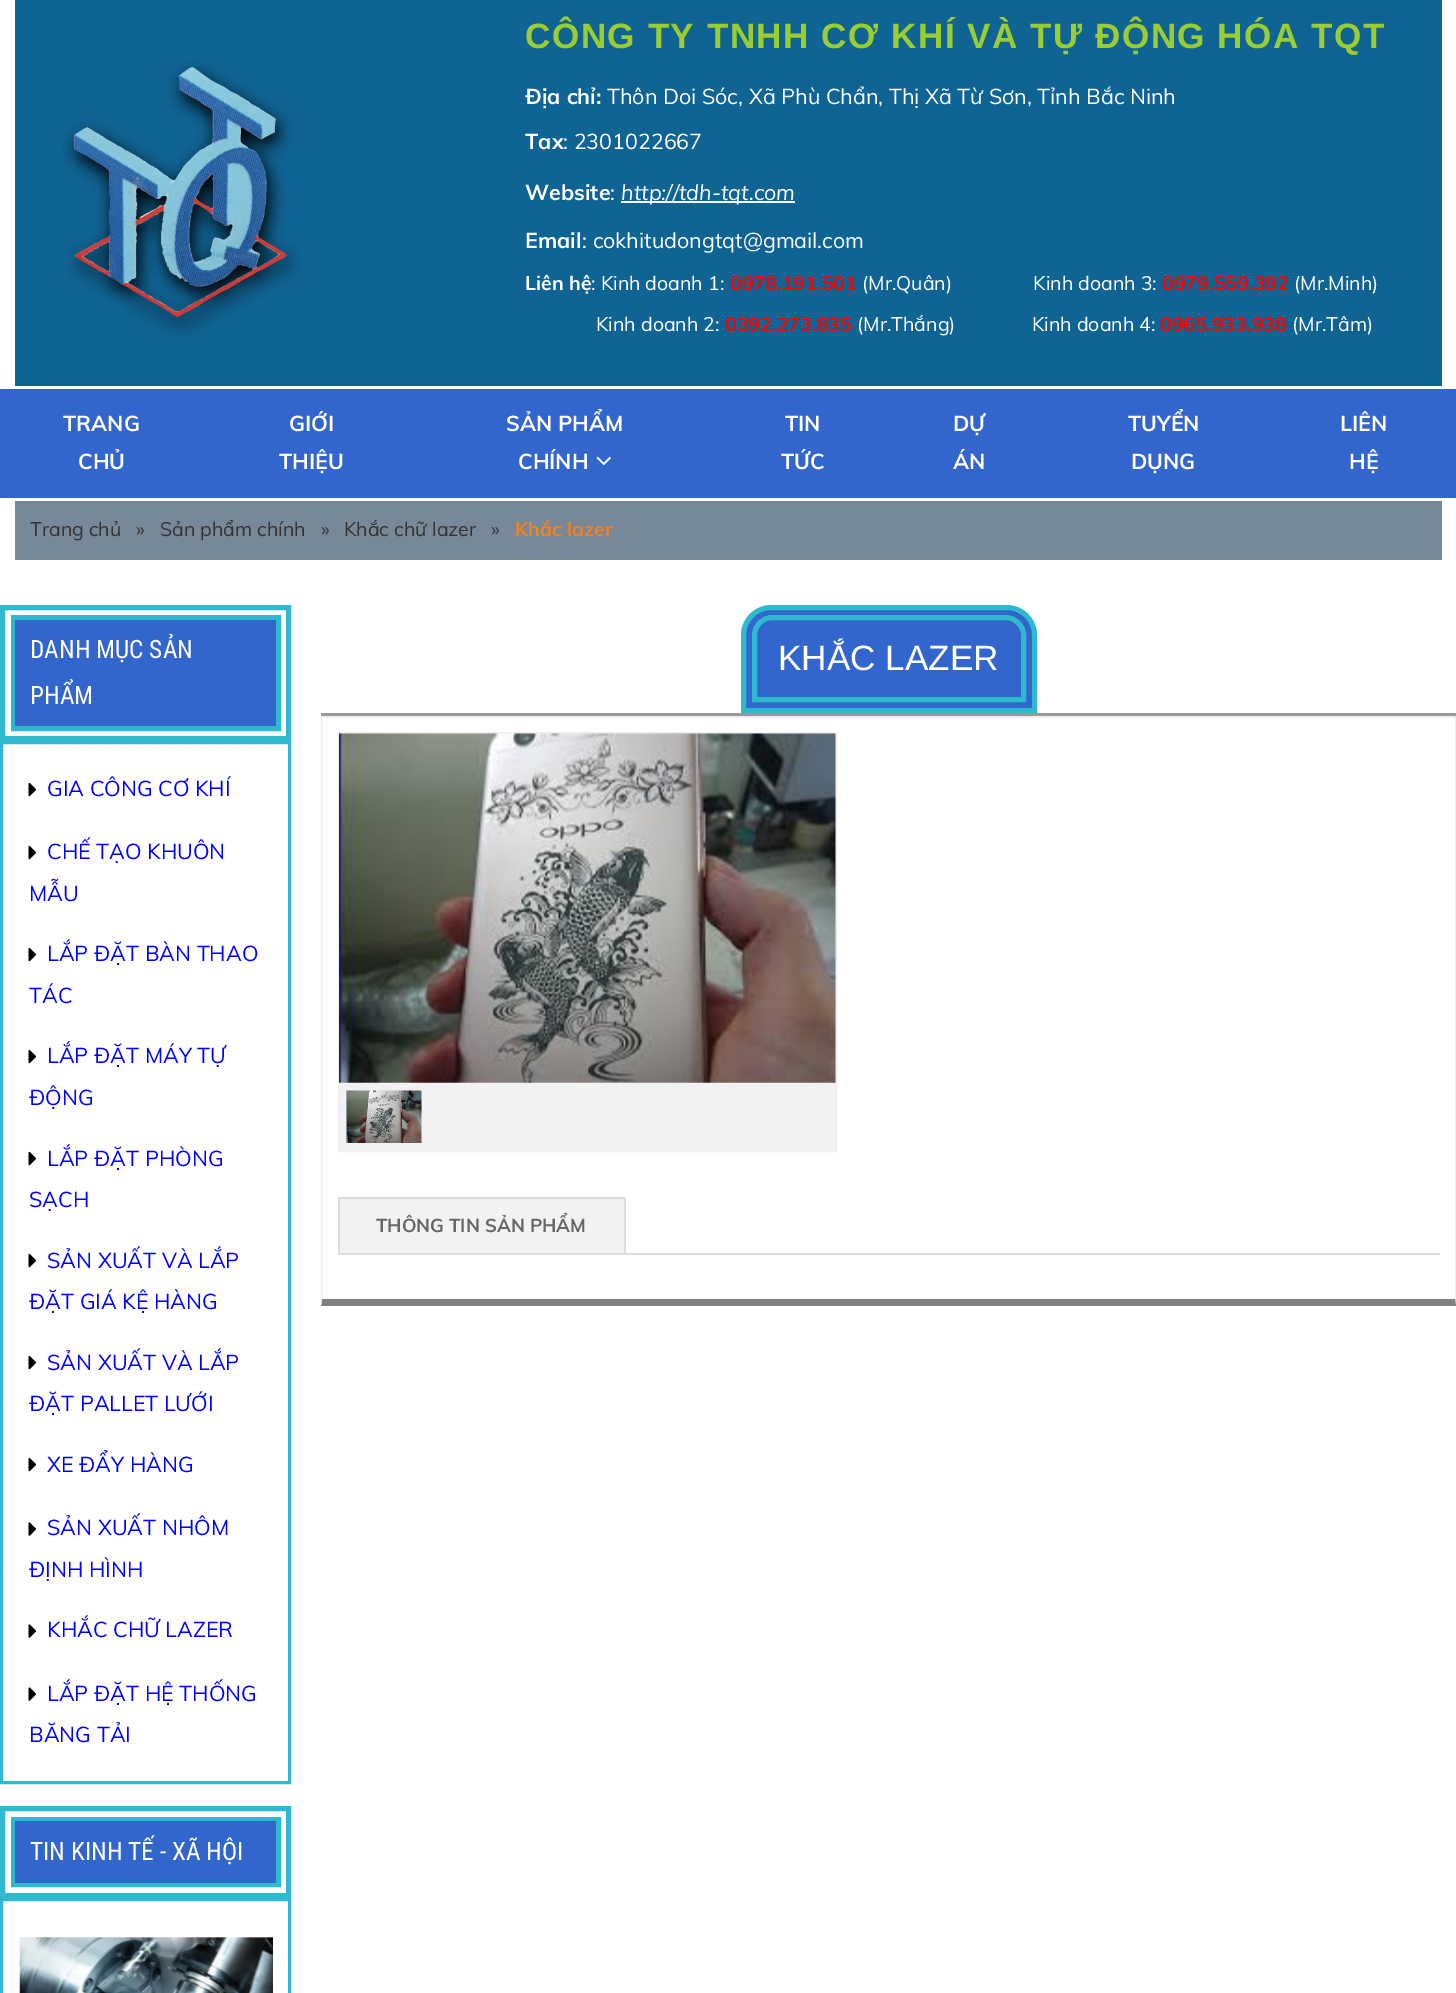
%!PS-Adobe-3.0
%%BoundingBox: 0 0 1456 1993
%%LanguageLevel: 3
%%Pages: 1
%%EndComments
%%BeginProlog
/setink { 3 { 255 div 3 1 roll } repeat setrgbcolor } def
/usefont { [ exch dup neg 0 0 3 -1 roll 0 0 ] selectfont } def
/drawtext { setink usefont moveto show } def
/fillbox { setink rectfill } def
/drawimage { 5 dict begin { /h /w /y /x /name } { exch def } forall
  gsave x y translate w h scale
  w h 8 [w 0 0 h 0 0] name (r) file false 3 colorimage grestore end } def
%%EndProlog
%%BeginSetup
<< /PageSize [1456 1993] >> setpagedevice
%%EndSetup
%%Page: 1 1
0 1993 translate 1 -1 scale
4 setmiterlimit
0 0 1456 1993 255 255 255 fillbox
15 0 1427 386 16 100 148 fillbox
(assets/img1.rgb) 62 61 239 277 drawimage
/LiberationSans-Bold 35.1 usefont
154 205 50 setink
525 48 moveto 1.5 0 (CÔNG TY TNHH CƠ KHÍ VÀ TỰ ĐỘNG HÓA TQT) ashow
(Địa chỉ:) 525 104 /Muli-Bold 21.45 255 255 255 drawtext
(Thôn Doi Sóc, Xã Phù Chẩn, Thị Xã Từ Sơn, Tỉnh Bắc Ninh) 607 104 /Muli-Regular 21.45 255 255 255 drawtext
(Tax) 525 149 /Muli-Bold 21.45 255 255 255 drawtext
(: 2301022667) 563 149 /Muli-Regular 21.45 255 255 255 drawtext
(Website) 525 200 /Muli-Bold 21.45 255 255 255 drawtext
(:) 610 200 /Muli-Regular 21.45 255 255 255 drawtext
621 201 174 2 255 255 255 fillbox
(http://tdh-tqt.com) 621 200 /Muli-Italic 21.45 255 255 255 drawtext
(Email) 525 248 /Muli-Bold 21.45 255 255 255 drawtext
(: cokhitudongtqt@gmail.com) 582 248 /Muli-Regular 21.45 255 255 255 drawtext
(Liên hệ) 525 290 /Muli-Bold 19.5 255 255 255 drawtext
(: Kinh doanh 1:) 591 290 /Muli-Regular 19.5 255 255 255 drawtext
(0978.191.501) 730 290 /Muli-Bold 19.5 255 0 0 drawtext
(\(Mr.Quân\)                Kinh doanh 3:) 862 290 /Muli-Regular 19.5 255 255 255 drawtext
(0979.559.392) 1162 290 /Muli-Bold 19.5 255 0 0 drawtext
(\(Mr.Minh\)) 1294 290 /Muli-Regular 19.5 255 255 255 drawtext
(Kinh doanh 2:) 596 331 /Muli-Regular 19.5 255 255 255 drawtext
(0392.273.835) 725 331 /Muli-Bold 19.5 255 0 0 drawtext
(\(Mr.Thắng\)               Kinh doanh 4:) 857 331 /Muli-Regular 19.5 255 255 255 drawtext
(0965.933.938) 1160 331 /Muli-Bold 19.5 255 0 0 drawtext
(\(Mr.Tâm\)) 1292 331 /Muli-Regular 19.5 255 255 255 drawtext
0 389 1456 109 51 102 204 fillbox
(TRANG) 63 431 /Muli-Bold 21.45 255 255 255 drawtext
(CHỦ) 78 469 /Muli-Bold 21.45 255 255 255 drawtext
(GIỚI) 289 431 /Muli-Bold 21.45 255 255 255 drawtext
(THIỆU) 279 469 /Muli-Bold 21.45 255 255 255 drawtext
(SẢN PHẨM) 506 431 /Muli-Bold 21.45 255 255 255 drawtext
(CHÍNH) 518 469 /Muli-Bold 21.45 255 255 255 drawtext
(assets/img2.rgb) 596 456 15 10 drawimage
(TIN) 785 431 /Muli-Bold 21.45 255 255 255 drawtext
(TỨC) 781 469 /Muli-Bold 21.45 255 255 255 drawtext
(DỰ) 953 431 /Muli-Bold 21.45 255 255 255 drawtext
(ÁN) 953 469 /Muli-Bold 21.45 255 255 255 drawtext
(TUYỂN) 1128 431 /Muli-Bold 21.45 255 255 255 drawtext
(DỤNG) 1131 469 /Muli-Bold 21.45 255 255 255 drawtext
(LIÊN) 1340 431 /Muli-Bold 21.45 255 255 255 drawtext
(HỆ) 1349 469 /Muli-Bold 21.45 255 255 255 drawtext
15 501 1427 59 119 136 153 fillbox
(Trang chủ) 30 536 /Muli-Regular 19.5 51 51 51 drawtext
(») 136 536 /Muli-Regular 19.5 51 51 51 drawtext
(Sản phẩm chính) 160 536 /Muli-Regular 19.5 51 51 51 drawtext
(») 321 536 /Muli-Regular 19.5 51 51 51 drawtext
(Khắc chữ lazer) 344 536 /Muli-Regular 19.5 51 51 51 drawtext
(») 491 536 /Muli-Regular 19.5 51 51 51 drawtext
(Khắc lazer) 515 536 /Muli-Bold 19.5 246 129 33 drawtext
46 185 206 setink
5 setlinewidth
2.5 607.5 286 131 rectstroke
13.5 617.5 265 111 rectstroke
15 620 261 106 51 102 204 fillbox
(DANH MỤC SẢN) 30 658 /RobotoCondensed-Regular 25.25 255 255 255 drawtext
(PHẨM) 30 704 /RobotoCondensed-Regular 25.25 255 255 255 drawtext
46 185 206 setink
3 setlinewidth
1.5 742.5 288 1040 rectstroke
(assets/img3.rgb) 28 782 8 15 drawimage
(GIA CÔNG CƠ KHÍ) 47 796 /Muli-Regular 21.45 0 0 255 drawtext
(assets/img3.rgb) 28 845 8 15 drawimage
(CHẾ TẠO KHUÔN) 47 859 /Muli-Regular 21.45 0 0 255 drawtext
(MẪU) 29 901 /Muli-Regular 21.45 0 0 255 drawtext
(assets/img3.rgb) 28 947 8 15 drawimage
(LẮP ĐẶT BÀN THAO) 47 961 /Muli-Regular 21.45 0 0 255 drawtext
(TÁC) 29 1003 /Muli-Regular 21.45 0 0 255 drawtext
(assets/img3.rgb) 28 1049 8 15 drawimage
(LẮP ĐẶT MÁY TỰ) 47 1063 /Muli-Regular 21.45 0 0 255 drawtext
(ĐỘNG) 29 1105 /Muli-Regular 21.45 0 0 255 drawtext
(assets/img3.rgb) 28 1151 8 15 drawimage
(LẮP ĐẶT PHÒNG) 47 1166 /Muli-Regular 21.45 0 0 255 drawtext
(SẠCH) 29 1207 /Muli-Regular 21.45 0 0 255 drawtext
(assets/img3.rgb) 28 1253 8 15 drawimage
(SẢN XUẤT VÀ LẮP) 47 1268 /Muli-Regular 21.45 0 0 255 drawtext
(ĐẶT GIÁ KỆ HÀNG) 29 1309 /Muli-Regular 21.45 0 0 255 drawtext
(assets/img3.rgb) 28 1355 8 15 drawimage
(SẢN XUẤT VÀ LẮP) 47 1370 /Muli-Regular 21.45 0 0 255 drawtext
(ĐẶT PALLET LƯỚI) 29 1411 /Muli-Regular 21.45 0 0 255 drawtext
(assets/img3.rgb) 28 1457 8 15 drawimage
(XE ĐẨY HÀNG) 47 1472 /Muli-Regular 21.45 0 0 255 drawtext
(assets/img4.rgb) 28 1522 8 14 drawimage
(SẢN XUẤT NHÔM) 47 1535 /Muli-Regular 21.45 0 0 255 drawtext
(ĐỊNH HÌNH) 29 1577 /Muli-Regular 21.45 0 0 255 drawtext
(assets/img4.rgb) 28 1624 8 14 drawimage
(KHẮC CHỮ LAZER) 47 1637 /Muli-Regular 21.45 0 0 255 drawtext
(assets/img4.rgb) 28 1687 8 14 drawimage
(LẮP ĐẶT HỆ THỐNG) 47 1701 /Muli-Regular 21.45 0 0 255 drawtext
(BĂNG TẢI) 29 1742 /Muli-Regular 21.45 0 0 255 drawtext
46 185 206 setink
5 setlinewidth
2.5 1808.5 286 87 rectstroke
13.5 1819.5 265 65 rectstroke
15 1821 261 62 51 102 204 fillbox
(TIN KINH TẾ - XÃ HỘI) 30 1860 /RobotoCondensed-Regular 25.25 255 255 255 drawtext
46 185 206 setink
3 setlinewidth
1.5 1899.5 288 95 rectstroke
(assets/img5.rgb) 18 1937 255 56 drawimage
321 713 1135 3 153 153 153 fillbox
51 102 204 setink
771 607.5 moveto 1007 607.5 lineto 1022 607.5 1034.5 620 1034.5 635 curveto 1034.5 710.5 lineto 743.5 710.5 lineto 743.5 635 lineto 743.5 620 756 607.5 771 607.5 curveto closepath gsave fill grestore
46 185 206 setink
5 setlinewidth
stroke
772 617.5 moveto 1006 617.5 lineto 1015.5 617.5 1023.5 625.5 1023.5 635 curveto 1023.5 699.5 lineto 754.5 699.5 lineto 754.5 635 lineto 754.5 625.5 762.5 617.5 772 617.5 curveto closepath stroke
(KHẮC LAZER) 778 670 /LiberationSans-Regular 35.1 255 255 255 drawtext
321 716 1135 2 238 238 238 fillbox
1456 716 moveto 1456 1306 lineto 1455 1299 lineto 1455 717 lineto closepath fill
128 128 128 setink
1456 1306 moveto 321 1306 lineto 322 1299 lineto 1455 1299 lineto closepath fill
238 238 238 setink
321 1306 moveto 321 716 lineto 322 717 lineto 322 1299 lineto closepath fill
2 setlinewidth
339 733 497 418 rectstroke
(assets/img6.rgb) 339 733 497 350 drawimage
339 1083 497 68 242 242 242 fillbox
(assets/img7.rgb) 346 1090 76 53 drawimage
338 1253 1102 2 221 221 221 fillbox
340 1199 284 54 242 242 242 fillbox
338 1197 288 2 221 221 221 fillbox
624 1197 2 56 221 221 221 fillbox
338 1197 2 56 221 221 221 fillbox
(THÔNG TIN SẢN PHẨM) 376 1232 /Muli-Bold 18.5 102 102 102 drawtext
showpage
%%EOF
